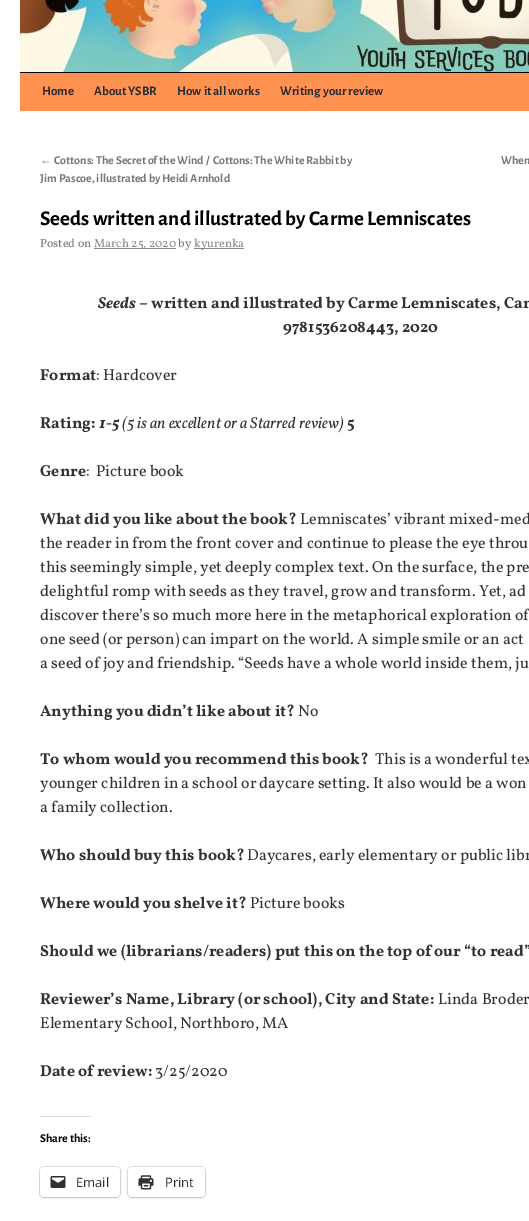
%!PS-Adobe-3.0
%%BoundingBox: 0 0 529 1221
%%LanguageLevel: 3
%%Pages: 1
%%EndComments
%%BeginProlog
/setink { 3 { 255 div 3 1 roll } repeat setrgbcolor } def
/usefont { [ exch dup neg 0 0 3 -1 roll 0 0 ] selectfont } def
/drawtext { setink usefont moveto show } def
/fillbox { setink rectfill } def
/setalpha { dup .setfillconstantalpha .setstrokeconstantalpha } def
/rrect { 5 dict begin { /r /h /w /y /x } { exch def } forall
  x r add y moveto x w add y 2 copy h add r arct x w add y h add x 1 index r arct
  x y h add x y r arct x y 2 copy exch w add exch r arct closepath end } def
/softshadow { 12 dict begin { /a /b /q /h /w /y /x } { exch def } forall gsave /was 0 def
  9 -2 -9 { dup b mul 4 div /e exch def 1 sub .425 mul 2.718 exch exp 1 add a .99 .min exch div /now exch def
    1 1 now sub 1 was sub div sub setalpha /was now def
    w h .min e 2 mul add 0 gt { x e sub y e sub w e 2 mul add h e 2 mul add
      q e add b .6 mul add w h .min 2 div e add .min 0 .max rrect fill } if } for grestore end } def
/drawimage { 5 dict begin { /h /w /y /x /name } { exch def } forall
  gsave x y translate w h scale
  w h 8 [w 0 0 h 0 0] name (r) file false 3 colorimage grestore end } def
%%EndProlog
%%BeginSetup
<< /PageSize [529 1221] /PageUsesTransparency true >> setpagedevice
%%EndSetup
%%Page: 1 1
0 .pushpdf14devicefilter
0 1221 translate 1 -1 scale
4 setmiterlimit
0 0 529 1221 255 255 255 fillbox
20 72 509 1 0 0 0 fillbox
(assets/img1.rgb) 20 0 509 72 drawimage
20 73 509 38 255 146 81 fillbox
(Home) 42 95 /AlegreyaSans-Bold 13 45 45 45 drawtext
(About YSBR) 94 95 /AlegreyaSans-Bold 13 45 45 45 drawtext
(How it all works) 177 95 /AlegreyaSans-Bold 13 45 45 45 drawtext
(Writing your review) 280 95 /AlegreyaSans-Bold 13 45 45 45 drawtext
(←) 40 164 /LiberationSans-Bold 12 119 119 119 drawtext
(Cottons: The Secret of the Wind /  Cottons: The White Rabbit by) 54 164 /AlegreyaSans-Bold 12 119 119 119 drawtext
(Jim Pascoe, illustrated by Heidi Arnhold) 40 182 /AlegreyaSans-Bold 12 119 119 119 drawtext
(When) 501 164 /AlegreyaSans-Bold 12 119 119 119 drawtext
(Seeds written and illustrated by Carme Lemniscates) 40 225 /AlegreyaSans-Bold 21 0 0 0 drawtext
(Posted on) 40 247 /Vollkorn-Regular 12 119 119 119 drawtext
94 248 82 1 136 136 136 fillbox
(March 25, 2020) 94 247 /Vollkorn-Regular 12 136 136 136 drawtext
(by) 178 247 /Vollkorn-Regular 12 119 119 119 drawtext
194 248 50 1 136 136 136 fillbox
(kyurenka) 194 247 /Vollkorn-Regular 12 136 136 136 drawtext
(Seeds –) 98 308 /Vollkorn-BoldItalic 16 51 51 51 drawtext
(written and illustrated by Carme Lemniscates, Can) 151 308 /Vollkorn-Bold 16 51 51 51 drawtext
(9781536208443, 2020) 283 332 /Vollkorn-Bold 16 51 51 51 drawtext
(Format) 40 380 /Vollkorn-Bold 16 51 51 51 drawtext
(: Hardcover) 96 380 /Vollkorn-Regular 16 51 51 51 drawtext
(Rating:) 40 428 /Vollkorn-Bold 16 51 51 51 drawtext
(1-5) 99 428 /Vollkorn-BoldItalic 16 51 51 51 drawtext
(\(5 is an excellent or a Starred review\)) 122 428 /Vollkorn-Italic 16 51 51 51 drawtext
(5) 347 428 /Vollkorn-Bold 16 51 51 51 drawtext
(Genre) 40 476 /Vollkorn-Bold 16 51 51 51 drawtext
(:  Picture book) 86 476 /Vollkorn-Regular 16 51 51 51 drawtext
(What did you like about the book?) 40 524 /Vollkorn-Bold 16 51 51 51 drawtext
(Lemniscates’ vibrant mixed-med) 300 524 /Vollkorn-Regular 16 51 51 51 drawtext
(the reader in from the front cover and continue to please the eye throu) 40 548 /Vollkorn-Regular 16 51 51 51 drawtext
(this seemingly simple, yet deeply complex text. On the surface, the pre) 40 572 /Vollkorn-Regular 16 51 51 51 drawtext
(delightful romp with seeds as they travel, grow and transform. Yet, ad) 40 596 /Vollkorn-Regular 16 51 51 51 drawtext
(discover there’s so much more here in the metaphorical exploration of) 40 620 /Vollkorn-Regular 16 51 51 51 drawtext
(one seed \(or person\) can impart on the world. A simple smile or an act) 40 644 /Vollkorn-Regular 16 51 51 51 drawtext
(a seed of joy and friendship. “Seeds have a whole world inside them, ju) 40 668 /Vollkorn-Regular 16 51 51 51 drawtext
(Anything you didn’t like about it?) 40 716 /Vollkorn-Bold 16 51 51 51 drawtext
(No) 298 716 /Vollkorn-Regular 16 51 51 51 drawtext
(To whom would you recommend this book?) 40 764 /Vollkorn-Bold 16 51 51 51 drawtext
(This is a wonderful tex) 375 764 /Vollkorn-Regular 16 51 51 51 drawtext
(younger children in a school or daycare setting. It also would be a won) 40 788 /Vollkorn-Regular 16 51 51 51 drawtext
(a family collection.) 40 812 /Vollkorn-Regular 16 51 51 51 drawtext
(Who should buy this book?) 40 860 /Vollkorn-Bold 16 51 51 51 drawtext
(Daycares, early elementary or public libr) 247 860 /Vollkorn-Regular 16 51 51 51 drawtext
(Where would you shelve it?) 40 908 /Vollkorn-Bold 16 51 51 51 drawtext
(Picture books) 250 908 /Vollkorn-Regular 16 51 51 51 drawtext
(Should we \(librarians/readers\) put this on the top of our “to read”) 40 956 /Vollkorn-Bold 16 51 51 51 drawtext
(Reviewer’s Name, Library \(or school\), City and State:) 40 1004 /Vollkorn-Bold 16 51 51 51 drawtext
(Linda Broder) 438 1004 /Vollkorn-Regular 16 51 51 51 drawtext
(Elementary School, Northboro, MA) 40 1028 /Vollkorn-Regular 16 51 51 51 drawtext
(Date of review:) 40 1076 /Vollkorn-Bold 16 51 51 51 drawtext
(3/25/2020) 155 1076 /Vollkorn-Regular 16 51 51 51 drawtext
40 1116 51 1 220 220 222 fillbox
(Share this:) 40 1142 /AlegreyaSans-Bold 12 0 0 0 drawtext
224 224 224 setink
39.5 1166.5 81 31 4.5 rrect stroke
0 0 0 setink
40 1168 80 30 4 1 0.12 softshadow
255 255 255 setink
40 1167 80 30 4 rrect fill
(assets/img2.rgb) 50 1176 16 12 drawimage
(Email) 76 1187 /OpenSans-Regular 13 44 51 56 drawtext
224 224 224 setink
127.5 1166.5 78 31 4.5 rrect stroke
0 0 0 setink
128 1168 77 30 4 1 0.12 softshadow
255 255 255 setink
128 1167 77 30 4 rrect fill
(assets/img3.rgb) 138 1175 16 15 drawimage
(Print) 165 1187 /OpenSans-Regular 13 44 51 56 drawtext
.poppdf14devicefilter showpage
%%EOF
